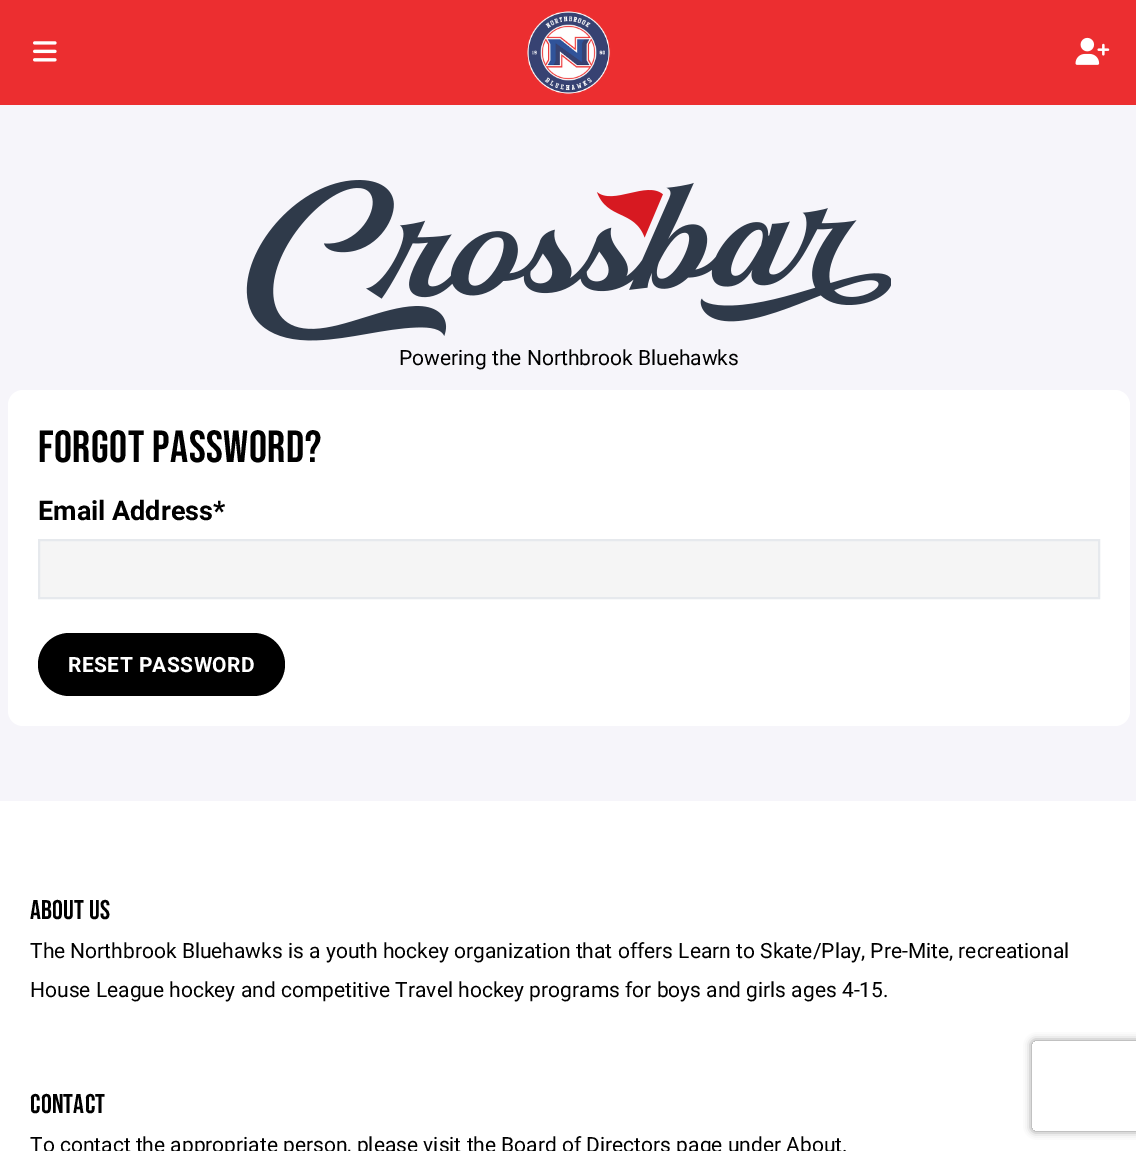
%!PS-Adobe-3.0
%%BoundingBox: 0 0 1136 1151
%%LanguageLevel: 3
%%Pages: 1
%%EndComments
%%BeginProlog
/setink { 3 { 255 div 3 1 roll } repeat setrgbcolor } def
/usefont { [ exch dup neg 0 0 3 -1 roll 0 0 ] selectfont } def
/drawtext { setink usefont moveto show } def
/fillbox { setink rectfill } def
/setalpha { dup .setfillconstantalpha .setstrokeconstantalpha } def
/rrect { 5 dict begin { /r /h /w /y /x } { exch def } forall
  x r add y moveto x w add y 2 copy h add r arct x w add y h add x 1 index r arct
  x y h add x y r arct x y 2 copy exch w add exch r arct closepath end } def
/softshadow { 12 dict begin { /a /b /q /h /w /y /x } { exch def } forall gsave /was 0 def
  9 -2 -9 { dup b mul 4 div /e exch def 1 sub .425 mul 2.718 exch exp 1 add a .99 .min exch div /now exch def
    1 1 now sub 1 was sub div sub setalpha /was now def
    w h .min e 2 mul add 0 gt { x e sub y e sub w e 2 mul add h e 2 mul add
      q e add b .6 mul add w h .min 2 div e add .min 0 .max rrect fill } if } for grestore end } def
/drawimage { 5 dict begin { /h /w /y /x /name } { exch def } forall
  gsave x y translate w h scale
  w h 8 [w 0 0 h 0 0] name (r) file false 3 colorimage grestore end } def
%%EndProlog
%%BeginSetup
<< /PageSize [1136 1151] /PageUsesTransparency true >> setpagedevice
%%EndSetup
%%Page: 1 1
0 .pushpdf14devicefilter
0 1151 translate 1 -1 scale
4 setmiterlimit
0 0 1136 1151 246 245 250 fillbox
0 0 1136 105 236 46 48 fillbox
(assets/img1.rgb) 33 41 24 21 drawimage
(assets/img2.rgb) 527 11 84 84 drawimage
(assets/img3.rgb) 1075 37 35 28 drawimage
(assets/img4.rgb) 246 180 645 161 drawimage
(Powering the Northbrook Bluehawks) 399 365 /Roboto-Regular 21 0 0 0 drawtext
255 255 255 setink
8 390 1122 336 15 rrect fill
/BebasNeue-Regular 45 usefont
0 0 0 setink
38 462 moveto 0.5 0 (FORGOT PASSWORD?) ashow
(Email Address*) 38 520 /Roboto-Bold 27 0 0 0 drawtext
245 245 245 setink
39 540 moveto 1099 540 lineto 1099 598 lineto 39 598 lineto closepath gsave fill grestore
230 233 237 setink
2 setlinewidth
stroke
0 0 0 setink
38 633 247 63 31.5 rrect fill
/Roboto-Bold 21 usefont
255 255 255 setink
68 672 moveto 0.4 0 (RESET PASSWORD) ashow
0 801 1136 350 255 255 255 fillbox
/BebasNeue-Regular 27 usefont
0 0 0 setink
30 919 moveto 0.25 0 (ABOUT US) ashow
(The Northbrook Bluehawks is a youth hockey organization that offers Learn to Skate/Play, Pre-Mite, recreational) 30 958 /Roboto-Regular 21 0 0 0 drawtext
(House League hockey and competitive Travel hockey programs for boys and girls ages 4-15.) 30 997 /Roboto-Regular 21 0 0 0 drawtext
/BebasNeue-Regular 27 usefont
30 1113 moveto 0.25 0 (CONTACT) ashow
(To contact the appropriate person, please visit the Board of Directors page under About.) 30 1152 /Roboto-Regular 21 0 0 0 drawtext
gsave
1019 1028 moveto 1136 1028 lineto 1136 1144 lineto 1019 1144 lineto closepath 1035 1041 moveto 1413 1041 lineto 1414.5 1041 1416 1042.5 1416 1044 curveto 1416 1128 lineto 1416 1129.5 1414.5 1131 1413 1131 curveto 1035 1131 lineto 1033.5 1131 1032 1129.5 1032 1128 curveto 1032 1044 lineto 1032 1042.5 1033.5 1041 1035 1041 curveto closepath eoclip newpath
128 128 128 setink
1032 1041 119 90 3 4 1 softshadow
grestore
.poppdf14devicefilter showpage
%%EOF
